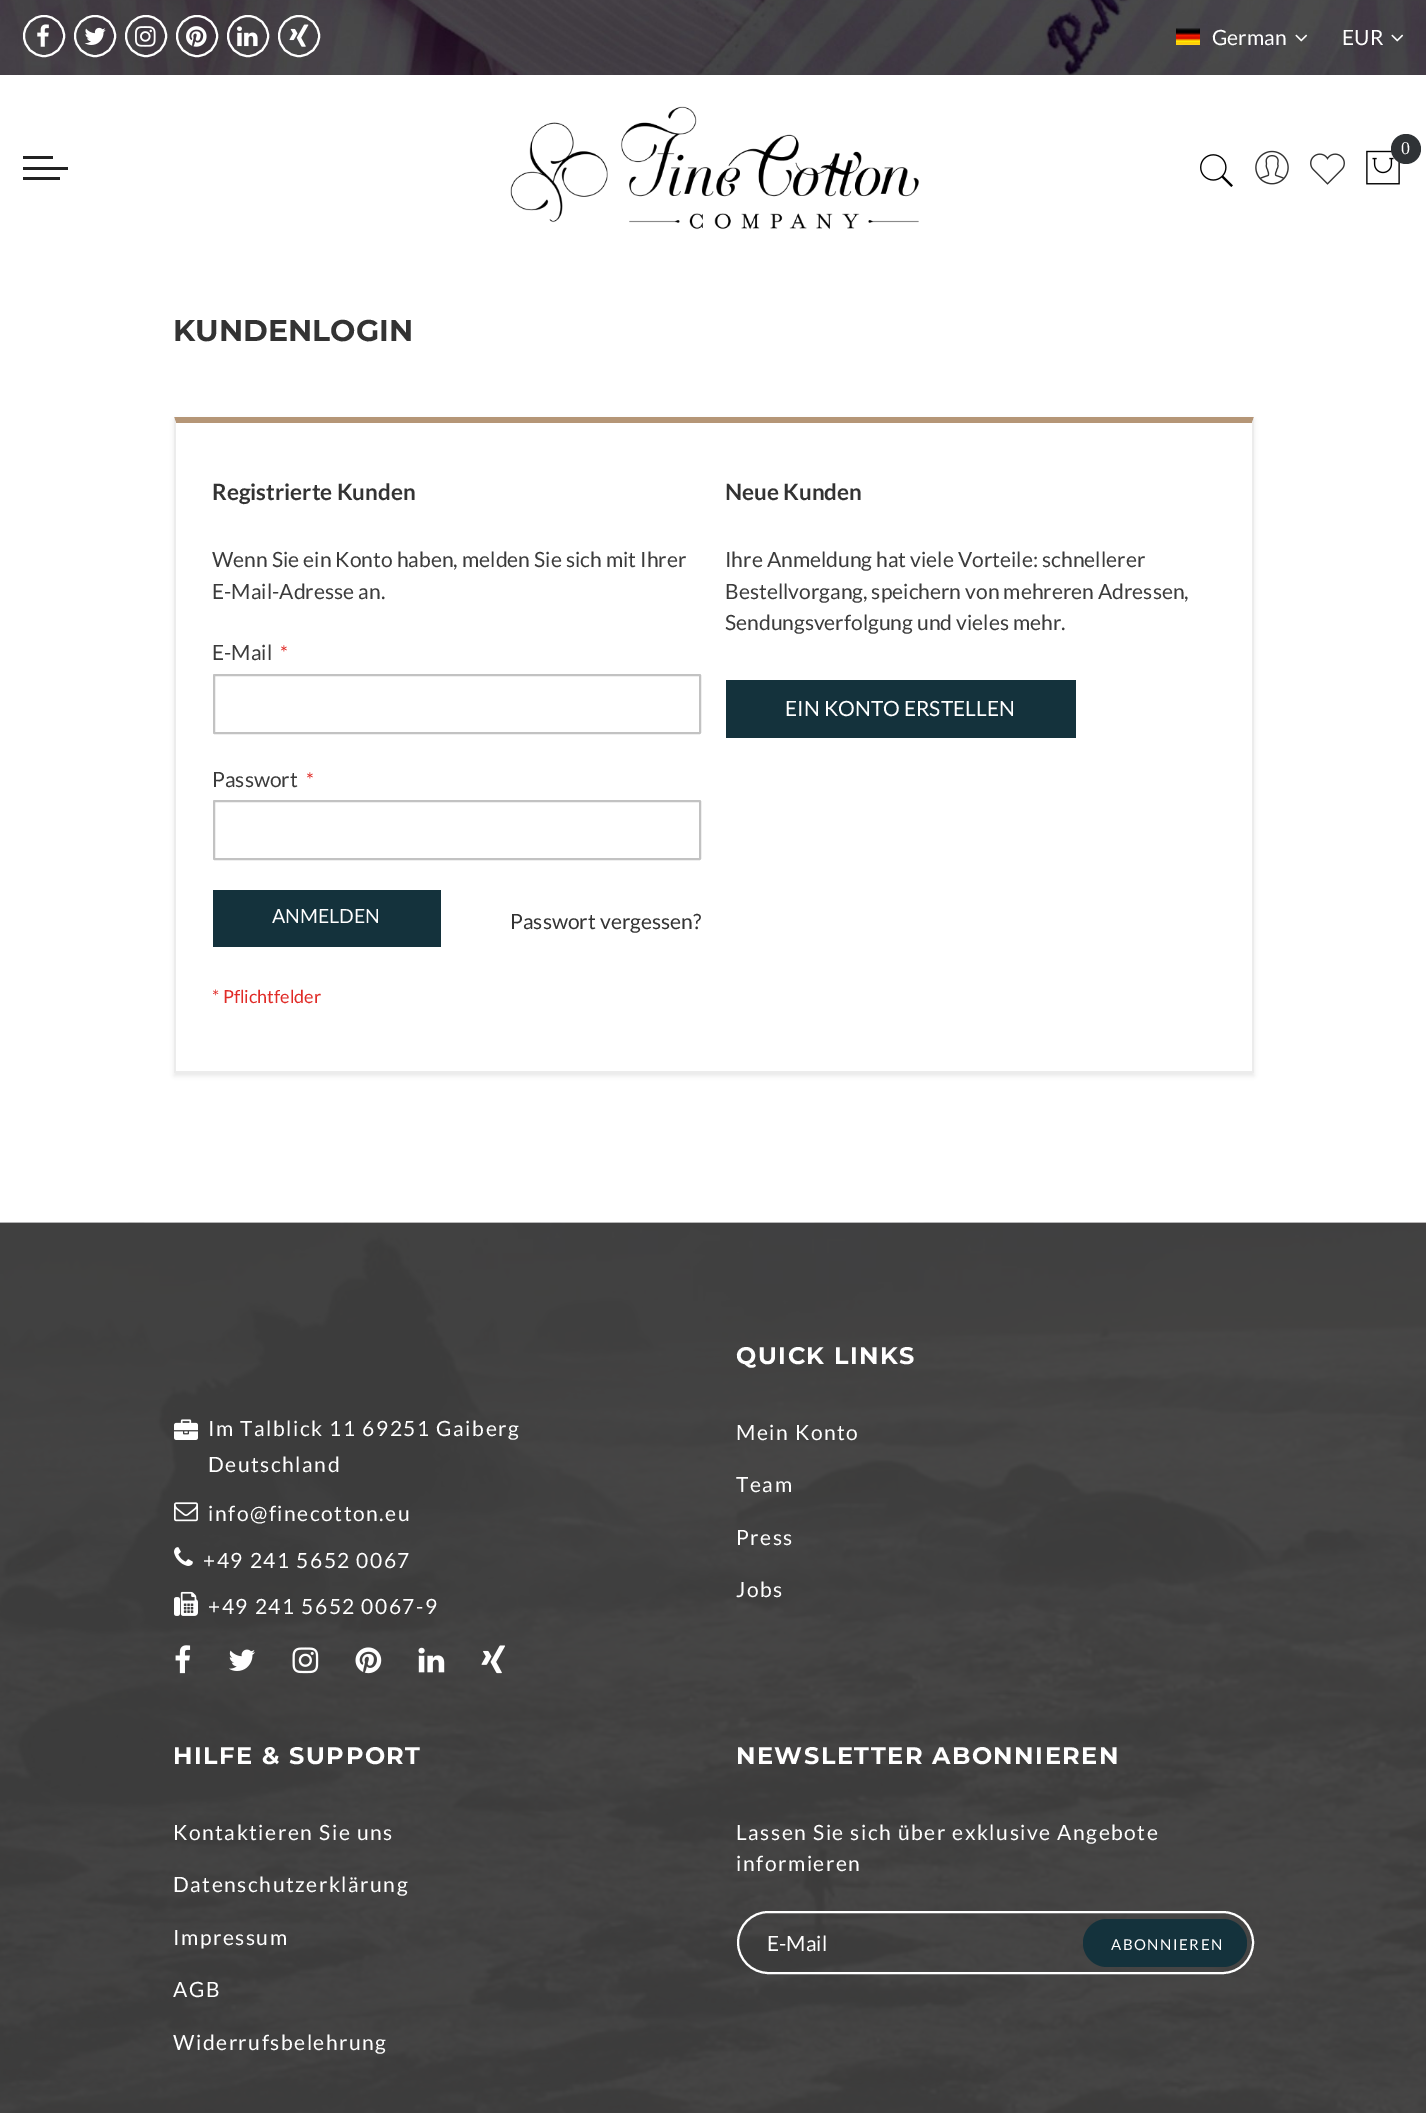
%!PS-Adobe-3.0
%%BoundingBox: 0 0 1426 2113
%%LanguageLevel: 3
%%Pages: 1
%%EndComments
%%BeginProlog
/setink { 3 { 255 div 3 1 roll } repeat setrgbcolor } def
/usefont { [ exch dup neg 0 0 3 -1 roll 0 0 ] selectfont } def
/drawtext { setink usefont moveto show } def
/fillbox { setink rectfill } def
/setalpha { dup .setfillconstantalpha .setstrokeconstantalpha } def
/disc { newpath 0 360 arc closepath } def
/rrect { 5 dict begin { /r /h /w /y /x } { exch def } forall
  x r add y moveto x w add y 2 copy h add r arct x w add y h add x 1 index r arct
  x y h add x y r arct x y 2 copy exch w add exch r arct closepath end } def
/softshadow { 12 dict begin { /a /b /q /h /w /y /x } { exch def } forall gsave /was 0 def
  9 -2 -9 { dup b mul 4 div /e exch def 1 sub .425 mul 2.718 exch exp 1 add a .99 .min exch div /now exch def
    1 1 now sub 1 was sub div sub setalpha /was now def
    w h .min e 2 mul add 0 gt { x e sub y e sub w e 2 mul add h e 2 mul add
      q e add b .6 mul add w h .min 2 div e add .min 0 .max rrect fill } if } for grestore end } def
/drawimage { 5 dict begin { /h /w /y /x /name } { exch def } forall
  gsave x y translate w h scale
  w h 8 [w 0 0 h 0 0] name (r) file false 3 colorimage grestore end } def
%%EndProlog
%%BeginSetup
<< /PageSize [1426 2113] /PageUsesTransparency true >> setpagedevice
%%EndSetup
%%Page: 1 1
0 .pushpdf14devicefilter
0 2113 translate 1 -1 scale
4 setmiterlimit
0 0 1426 2113 255 255 255 fillbox
(assets/img1.rgb) 0 0 1426 75 drawimage
2 setlinewidth
44 36 20 disc stroke
(assets/img2.rgb) 37 24 12 23 drawimage
95 36 20 disc stroke
(assets/img3.rgb) 84 27 22 18 drawimage
146 36 20 disc stroke
(assets/img4.rgb) 135 26 21 21 drawimage
197 36 20 disc stroke
(assets/img5.rgb) 186 26 21 21 drawimage
248 36 20 disc stroke
(assets/img6.rgb) 237 26 21 21 drawimage
299 36 20 disc stroke
(assets/img7.rgb) 289 24 20 23 drawimage
(assets/img8.rgb) 1176 28 24 17 drawimage
(German) 1212 45 /Lato-Regular 21 255 255 255 drawtext
(assets/img9.rgb) 1295 34 13 8 drawimage
(EUR) 1342 45 /Lato-Regular 21 255 255 255 drawtext
(assets/img10.rgb) 1391 34 13 8 drawimage
(assets/img11.rgb) 510 106 409 124 drawimage
(assets/img12.rgb) 1366 150 34 35 drawimage
47 51 54 setink
1406 149 15 disc fill
(0) 1401 154 /LiberationSerif-Regular 18 255 255 255 drawtext
(assets/img13.rgb) 1200 154 33 33 drawimage
(assets/img14.rgb) 1255 150 34 35 drawimage
(assets/img15.rgb) 1310 153 35 32 drawimage
23 156 30 3 34 34 34 fillbox
23 167 45 3 34 34 34 fillbox
23 177 37 3 34 34 34 fillbox
(KUNDENLOGIN) 173 341 /Montserrat-Bold 30 51 51 51 drawtext
gsave
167 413 moveto 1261 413 lineto 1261 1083 lineto 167 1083 lineto closepath 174 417 moveto 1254 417 lineto 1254 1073 lineto 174 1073 lineto closepath eoclip newpath
0 0 0 setink
174 420 1080 656 0 2 0.08 softshadow
grestore
181 150 119 setink
174 417 moveto 1254 417 lineto 1252 423 lineto 176 423 lineto closepath fill
236 236 236 setink
1254 417 moveto 1254 1072 lineto 1252 1071 lineto 1252 423 lineto closepath fill
174 1071 1080 2 236 236 236 fillbox
174 1072 moveto 174 417 lineto 176 423 lineto 176 1071 lineto closepath fill
(Registrierte Kunden) 212 500 /Lato-Bold 22.5 51 51 51 drawtext
(Wenn Sie ein Konto haben, melden Sie sich mit Ihrer) 212 567 /Lato-Regular 21 59 59 59 drawtext
(E-Mail-Adresse an.) 212 599 /Lato-Regular 21 59 59 59 drawtext
(E-Mail) 212 660 /Lato-Regular 21 59 59 59 drawtext
(*) 280 660 /Lato-Regular 19.5 224 43 39 drawtext
194 194 194 setink
214 675 486 58 0.5 rrect stroke
(Passwort) 212 787 /Lato-Regular 21 59 59 59 drawtext
(*) 306 787 /Lato-Regular 19.5 224 43 39 drawtext
194 194 194 setink
214 801 486 58 0.5 rrect stroke
213 890 228 57 20 50 60 fillbox
(ANMELDEN) 272 923 /Lato-Regular 19.5 255 255 255 drawtext
(Passwort vergessen?) 510 929 /Lato-Regular 21 51 51 51 drawtext
(* Pflichtfelder) 212 1003 /Lato-Regular 18 224 43 39 drawtext
(Neue Kunden) 725 500 /Lato-Bold 22.5 51 51 51 drawtext
(Ihre Anmeldung hat viele Vorteile: schnellerer) 725 567 /Lato-Regular 21 59 59 59 drawtext
(Bestellvorgang, speichern von mehreren Adressen,) 725 599 /Lato-Regular 21 59 59 59 drawtext
(Sendungsverfolgung und vieles mehr.) 725 630 /Lato-Regular 21 59 59 59 drawtext
726 680 350 58 20 50 60 fillbox
(EIN KONTO ERSTELLEN) 785 716 /Lato-Regular 21 255 255 255 drawtext
(assets/img16.rgb) 0 1222 1426 891 drawimage
(assets/img17.rgb) 174 1419 24 21 drawimage
208 1436 moveto 1.5 0 (Im Talblick 11 69251 Gaiberg) ashow
208 1472 moveto 1.5 0 (Deutschland) ashow
(assets/img18.rgb) 174 1502 24 20 drawimage
208 1521 moveto 1.5 0 (info@finecotton.eu) ashow
(assets/img19.rgb) 174 1547 19 19 drawimage
203 1568 moveto 1.5 0 (+49 241 5652 0067) ashow
(assets/img20.rgb) 174 1591 24 25 drawimage
208 1614 moveto 1.5 0 (+49 241 5652 0067-9) ashow
(assets/img21.rgb) 175 1645 16 29 drawimage
(assets/img22.rgb) 229 1649 26 22 drawimage
(assets/img23.rgb) 292 1647 27 27 drawimage
(assets/img24.rgb) 355 1647 27 27 drawimage
(assets/img25.rgb) 418 1647 27 26 drawimage
(assets/img26.rgb) 481 1645 24 29 drawimage
/Montserrat-Bold 24 usefont
736 1364 moveto 1.5 0 (QUICK LINKS) ashow
/Lato-Regular 21 usefont
736 1440 moveto 1.5 0 (Mein Konto) ashow
736 1492 moveto 1.5 0 (Team) ashow
736 1545 moveto 1.5 0 (Press) ashow
736 1597 moveto 1.5 0 (Jobs) ashow
/Montserrat-Bold 24 usefont
173 1764 moveto 1.5 0 (HILFE & SUPPORT) ashow
/Lato-Regular 21 usefont
173 1840 moveto 1.5 0 (Kontaktieren Sie uns) ashow
173 1892 moveto 1.5 0 (Datenschutzerklärung) ashow
173 1945 moveto 1.5 0 (Impressum) ashow
173 1997 moveto 1.5 0 (AGB) ashow
173 2050 moveto 1.5 0 (Widerrufsbelehrung) ashow
/Montserrat-Bold 24 usefont
736 1764 moveto 1.5 0 (NEWSLETTER ABONNIEREN) ashow
/Lato-Regular 21 usefont
736 1840 moveto 1.5 0 (Lassen Sie sich über exklusive Angebote) ashow
736 1871 moveto 1.5 0 (informieren) ashow
738 1912 515 61 30.5 rrect stroke
(E-Mail) 767 1951 /Lato-Regular 21 255 255 255 drawtext
20 50 60 setink
1083 1919 164 48 24 rrect fill
/Lato-Regular 15 usefont
255 255 255 setink
1111 1950 moveto 1.5 0 (ABONNIEREN) ashow
.poppdf14devicefilter showpage
%%EOF
